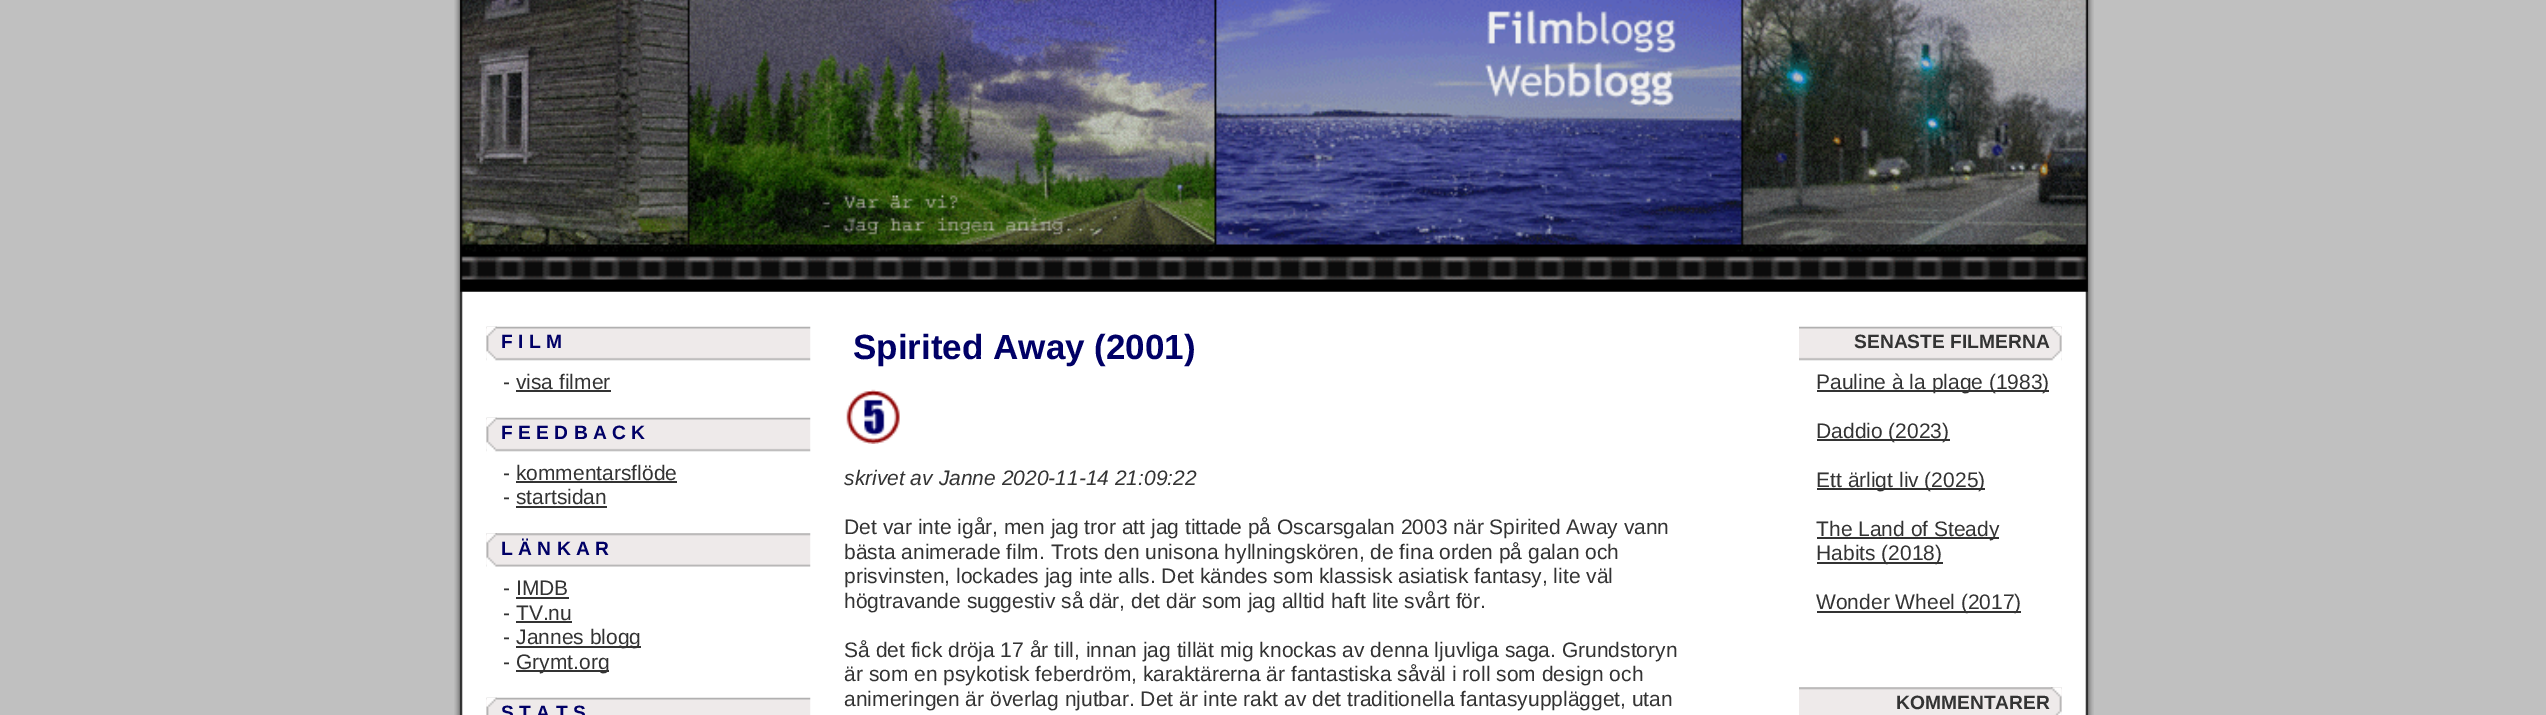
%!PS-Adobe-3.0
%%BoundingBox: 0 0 2546 715
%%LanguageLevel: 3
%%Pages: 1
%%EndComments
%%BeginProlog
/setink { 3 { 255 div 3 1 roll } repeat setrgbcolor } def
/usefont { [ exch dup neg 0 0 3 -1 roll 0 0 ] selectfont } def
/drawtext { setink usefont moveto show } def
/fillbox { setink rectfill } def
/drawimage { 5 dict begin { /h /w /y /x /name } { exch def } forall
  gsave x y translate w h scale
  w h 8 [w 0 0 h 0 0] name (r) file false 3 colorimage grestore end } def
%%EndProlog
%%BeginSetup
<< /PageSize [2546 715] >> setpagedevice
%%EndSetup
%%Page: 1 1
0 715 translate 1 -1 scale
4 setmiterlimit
0 0 2546 715 192 192 192 fillbox
(assets/img1.rgb) 454 0 1640 715 drawimage
(assets/img2.rgb) 460 0 1628 292 drawimage
(assets/img3.rgb) 486 326 325 35 drawimage
(assets/img4.rgb) 486 326 11 35 drawimage
(F I L M) 501 348 /LiberationSans-Bold 19.25 0 0 102 drawtext
(- visa filmer) 503 389 /LiberationSans-Regular 21 51 51 51 drawtext
516 390 95 2 51 51 51 fillbox
(assets/img3.rgb) 486 417 325 35 drawimage
(assets/img4.rgb) 486 417 11 35 drawimage
(F E E D B A C K) 501 439 /LiberationSans-Bold 19.25 0 0 102 drawtext
(- kommentarsflöde) 503 480 /LiberationSans-Regular 21 51 51 51 drawtext
516 481 161 2 51 51 51 fillbox
(- startsidan) 503 504 /LiberationSans-Regular 21 51 51 51 drawtext
516 506 91 2 51 51 51 fillbox
(assets/img5.rgb) 486 533 325 34 drawimage
(assets/img6.rgb) 486 533 11 34 drawimage
(L Ä N K A R) 501 555 /LiberationSans-Bold 19.25 0 0 102 drawtext
(- IMDB) 503 595 /LiberationSans-Regular 21 51 51 51 drawtext
516 597 53 2 51 51 51 fillbox
(- TV.nu) 503 620 /LiberationSans-Regular 21 51 51 51 drawtext
516 621 56 2 51 51 51 fillbox
(-) 503 644 /LiberationSans-Regular 21 51 51 51 drawtext
516 646 125 2 51 51 51 fillbox
(Jannes blogg) 516 644 /LiberationSans-Regular 21 51 51 51 drawtext
(-) 503 669 /LiberationSans-Regular 21 51 51 51 drawtext
516 670 93 2 51 51 51 fillbox
(Grymt.org) 516 669 /LiberationSans-Regular 21 51 51 51 drawtext
(assets/img7.rgb) 486 697 325 18 drawimage
(assets/img8.rgb) 486 697 11 18 drawimage
(S T A T S) 501 719 /LiberationSans-Bold 19.25 0 0 102 drawtext
(Spirited Away \(2001\)) 853 359 /LiberationSans-Bold 35 0 0 102 drawtext
(assets/img9.rgb) 846 389 54 55 drawimage
(skrivet av Janne 2020-11-14 21:09:22) 844 485 /LiberationSans-Italic 21 51 51 51 drawtext
(Det var inte igår, men jag tror att jag tittade på Oscarsgalan 2003 när Spirited Away vann) 844 534 /LiberationSans-Regular 21 51 51 51 drawtext
(bästa animerade film. Trots den unisona hyllningskören, de fina orden på galan och) 844 559 /LiberationSans-Regular 21 51 51 51 drawtext
(prisvinsten, lockades jag inte alls. Det kändes som klassisk asiatisk fantasy, lite väl) 844 583 /LiberationSans-Regular 21 51 51 51 drawtext
(högtravande suggestiv så där, det där som jag alltid haft lite svårt för.) 844 608 /LiberationSans-Regular 21 51 51 51 drawtext
(Så det fick dröja 17 år till, innan jag tillät mig knockas av denna ljuvliga saga. Grundstoryn) 844 657 /LiberationSans-Regular 21 51 51 51 drawtext
(är som en psykotisk feberdröm, karaktärerna är fantastiska såväl i roll som design och) 844 681 /LiberationSans-Regular 21 51 51 51 drawtext
(animeringen är överlag njutbar. Det är inte rakt av det traditionella fantasyupplägget, utan) 844 706 /LiberationSans-Regular 21 51 51 51 drawtext
(assets/img10.rgb) 1799 326 263 35 drawimage
(SENASTE FILMERNA) 1854 348 /LiberationSans-Bold 19.25 51 51 51 drawtext
(assets/img11.rgb) 2051 326 11 35 drawimage
1817 390 232 2 51 51 51 fillbox
(Pauline à la plage \(1983\)) 1816 389 /LiberationSans-Regular 21 51 51 51 drawtext
1817 439 133 2 51 51 51 fillbox
(Daddio \(2023\)) 1816 438 /LiberationSans-Regular 21 51 51 51 drawtext
1817 488 168 2 51 51 51 fillbox
(Ett ärligt liv \(2025\)) 1816 487 /LiberationSans-Regular 21 51 51 51 drawtext
1817 537 182 2 51 51 51 fillbox
(The Land of Steady) 1816 536 /LiberationSans-Regular 21 51 51 51 drawtext
1817 562 126 2 51 51 51 fillbox
(Habits \(2018\)) 1816 560 /LiberationSans-Regular 21 51 51 51 drawtext
1817 611 204 2 51 51 51 fillbox
(Wonder Wheel \(2017\)) 1816 609 /LiberationSans-Regular 21 51 51 51 drawtext
(assets/img12.rgb) 1799 687 263 28 drawimage
(KOMMENTARER) 1896 709 /LiberationSans-Bold 19.25 51 51 51 drawtext
(assets/img13.rgb) 2051 687 11 28 drawimage
showpage
%%EOF
